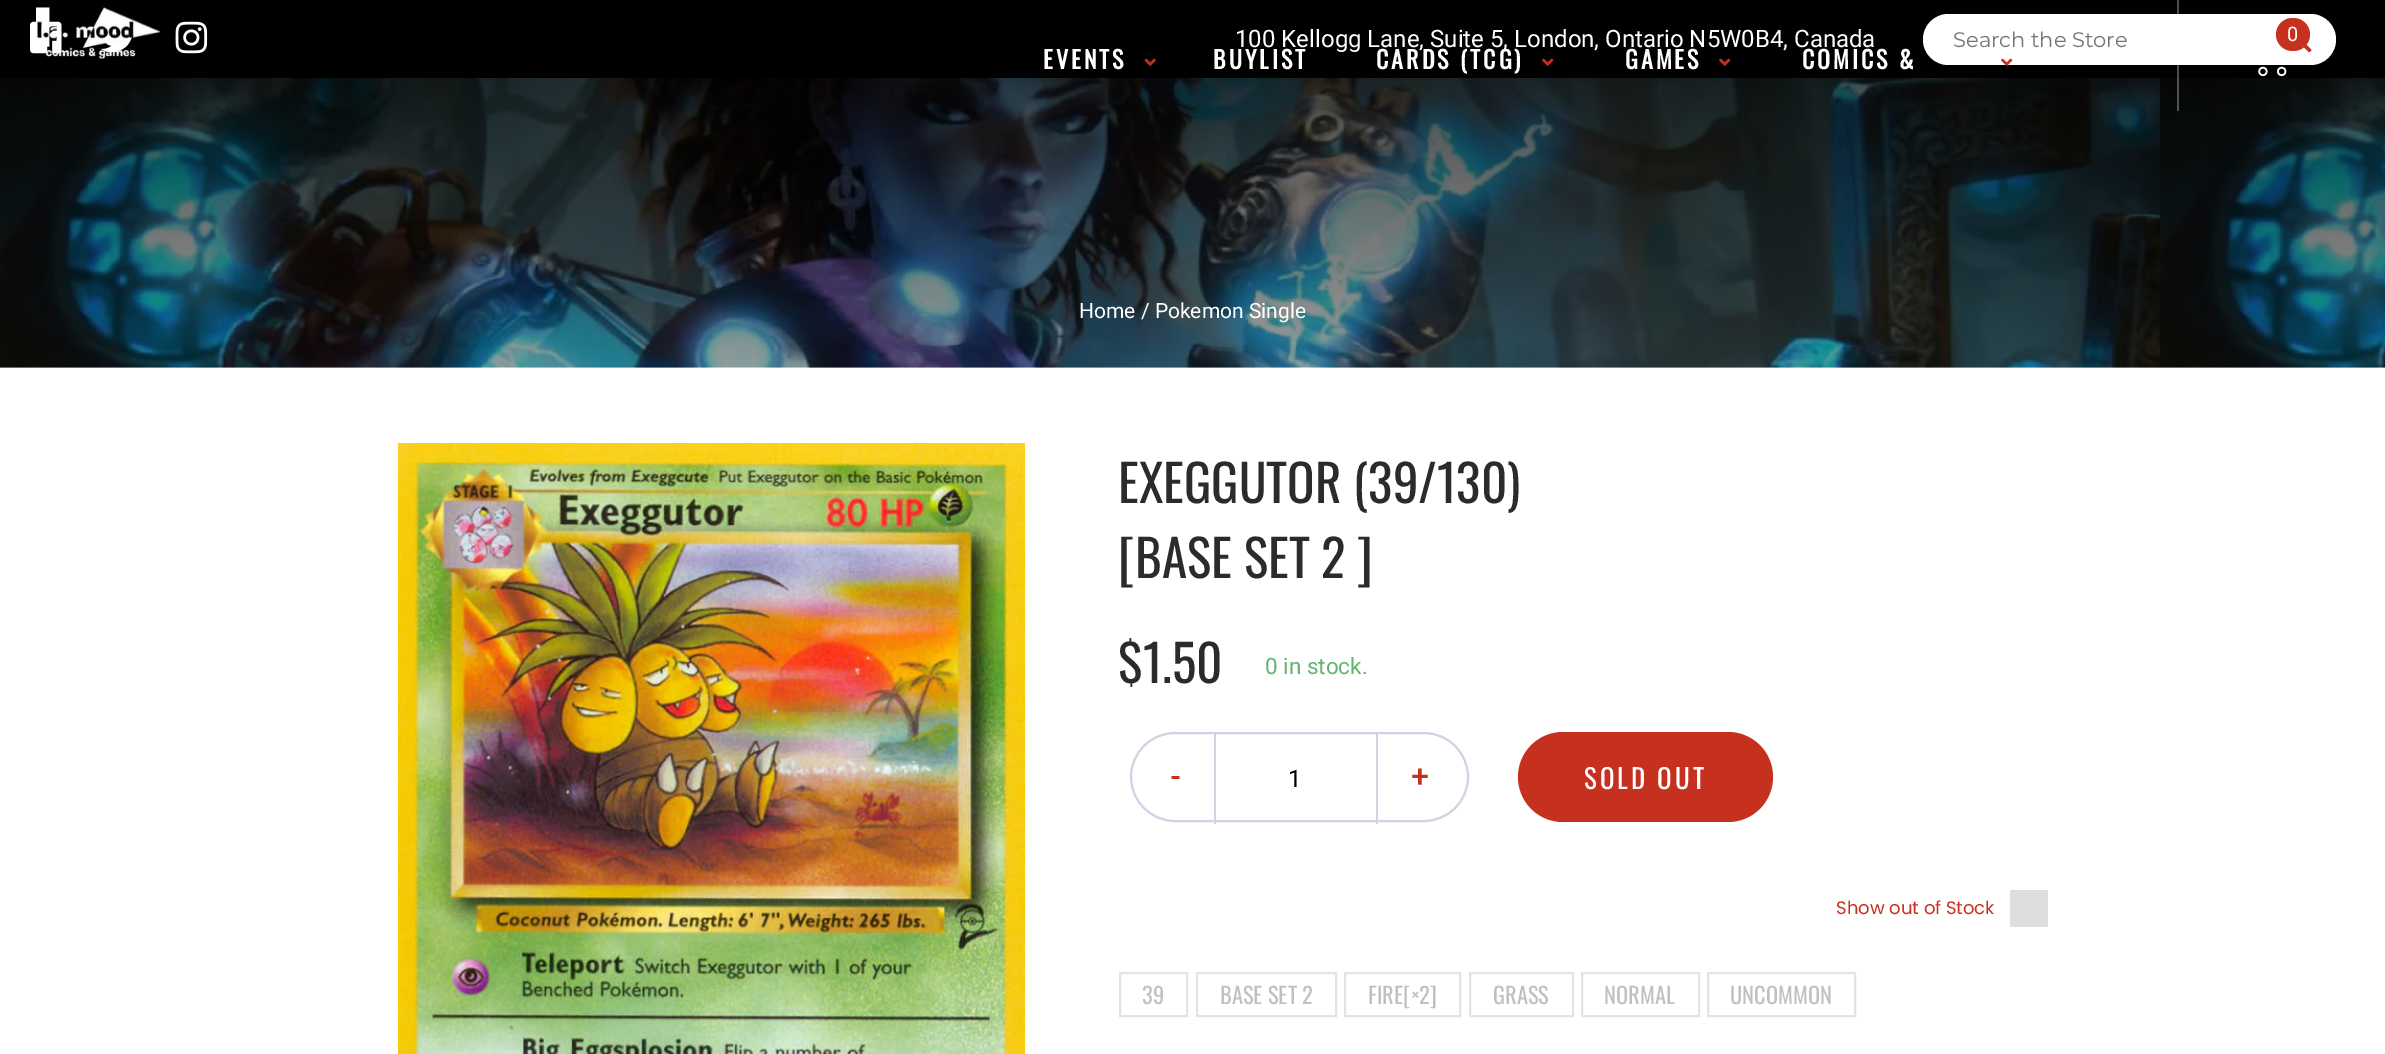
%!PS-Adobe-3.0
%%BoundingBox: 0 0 2385 1054
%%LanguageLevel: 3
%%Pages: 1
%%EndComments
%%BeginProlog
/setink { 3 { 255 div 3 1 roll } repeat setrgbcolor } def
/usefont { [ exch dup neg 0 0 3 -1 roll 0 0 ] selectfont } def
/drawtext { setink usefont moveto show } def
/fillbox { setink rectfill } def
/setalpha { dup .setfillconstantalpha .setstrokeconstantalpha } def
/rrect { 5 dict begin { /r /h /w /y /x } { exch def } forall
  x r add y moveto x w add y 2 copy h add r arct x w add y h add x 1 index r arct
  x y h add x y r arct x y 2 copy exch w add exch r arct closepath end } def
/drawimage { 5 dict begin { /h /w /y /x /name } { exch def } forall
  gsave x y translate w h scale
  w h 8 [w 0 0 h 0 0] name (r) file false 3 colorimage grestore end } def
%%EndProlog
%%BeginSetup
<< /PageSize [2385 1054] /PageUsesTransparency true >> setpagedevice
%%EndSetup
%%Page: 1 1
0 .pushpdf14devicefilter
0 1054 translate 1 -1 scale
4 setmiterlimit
0 0 2385 1054 255 255 255 fillbox
0 0 2385 78 0 0 0 fillbox
(assets/img6.rgb) 30 21 32 33 drawimage
(assets/img7.rgb) 100 23 36 30 drawimage
(assets/img1.rgb) 36 7 125 52 drawimage
255 255 255 setink
1923 14 413 51 25.5 rrect fill
(assets/img10.rgb) 0 78 2385 290 drawimage
0.3 setalpha
2177 0 2 111 255 255 255 fillbox
1 setalpha
(assets/img2.rgb) 2258 40 32 37 drawimage
(assets/img9.rgb) 2303 44 9 9 drawimage
198 49 31 setink
2276 18 34 33 16.5 rrect fill
(0) 2287 41 /Roboto-Regular 20 255 255 255 drawtext
/Oswald-Bold 24 usefont
1043 69 moveto 3 0 (EVENTS) ashow
(assets/img3.rgb) 1144 58 12 8 drawimage
1213 69 moveto 3 0 (BUYLIST) ashow
1376 69 moveto 3 0 (CARDS \(TCG\)) ashow
(assets/img4.rgb) 1542 58 12 8 drawimage
1625 69 moveto 3 0 (GAMES) ashow
(assets/img4.rgb) 1719 58 12 8 drawimage
1802 69 moveto 3 0 (COMICS &) ashow
(assets/img5.rgb) 2001 58 12 8 drawimage
(assets/img8.rgb) 175 21 33 33 drawimage
(100 Kellogg Lane, Suite 5, London, Ontario N5W0B4, Canada) 1235 47 /Roboto-Regular 24 255 255 255 drawtext
(Search the Store) 1953 47 /Montserrat-Regular 21 117 117 117 drawtext
(Home / Pokemon Single) 1079 318 /Roboto-Regular 21 255 255 255 drawtext
(assets/img11.rgb) 398 443 627 611 drawimage
(EXEGGUTOR \(39/130\)) 1118 503 /Oswald-Regular 51 43 43 43 drawtext
([BASE SET 2 ]) 1118 578 /Oswald-Regular 51 43 43 43 drawtext
($1.50) 1118 683 /Oswald-Regular 51 43 43 43 drawtext
(0 in stock.) 1265 674 /Roboto-Regular 22.5 100 180 113 drawtext
208 212 226 setink
2 setlinewidth
1131 733 337 88 44 rrect stroke
(-) 1171 787 /Roboto-Bold 30 198 49 31 drawtext
1376 734 2 90 208 212 226 fillbox
1214 734 2 90 208 212 226 fillbox
(1) 1288 787 /Roboto-Regular 24 0 0 0 drawtext
(+) 1411 787 /Roboto-Bold 30 198 49 31 drawtext
1518 732 255 90 45 rrect fill
/Oswald-Regular 27 usefont
255 255 255 setink
1584 789 moveto 3 0 (SOLD OUT) ashow
(Show out of Stock) 1836 914 /Poppins-Regular 18 198 49 31 drawtext
2010 890 38 37 222 222 222 fillbox
227 227 227 setink
1120 973 67 43 rectstroke
(39) 1142 1004 /Oswald-Regular 22.5 192 192 192 drawtext
227 227 227 setink
1197 973 139 43 rectstroke
(BASE SET 2) 1220 1004 /Oswald-Regular 22.5 192 192 192 drawtext
227 227 227 setink
1345 973 115 43 rectstroke
(FIRE[×2]) 1368 1004 /Oswald-Regular 22.5 192 192 192 drawtext
227 227 227 setink
1470 973 103 43 rectstroke
(GRASS) 1493 1004 /Oswald-Regular 22.5 192 192 192 drawtext
227 227 227 setink
1582 973 117 43 rectstroke
(NORMAL) 1604 1004 /Oswald-Regular 22.5 192 192 192 drawtext
227 227 227 setink
1708 973 147 43 rectstroke
(UNCOMMON) 1730 1004 /Oswald-Regular 22.5 192 192 192 drawtext
.poppdf14devicefilter showpage
%%EOF
